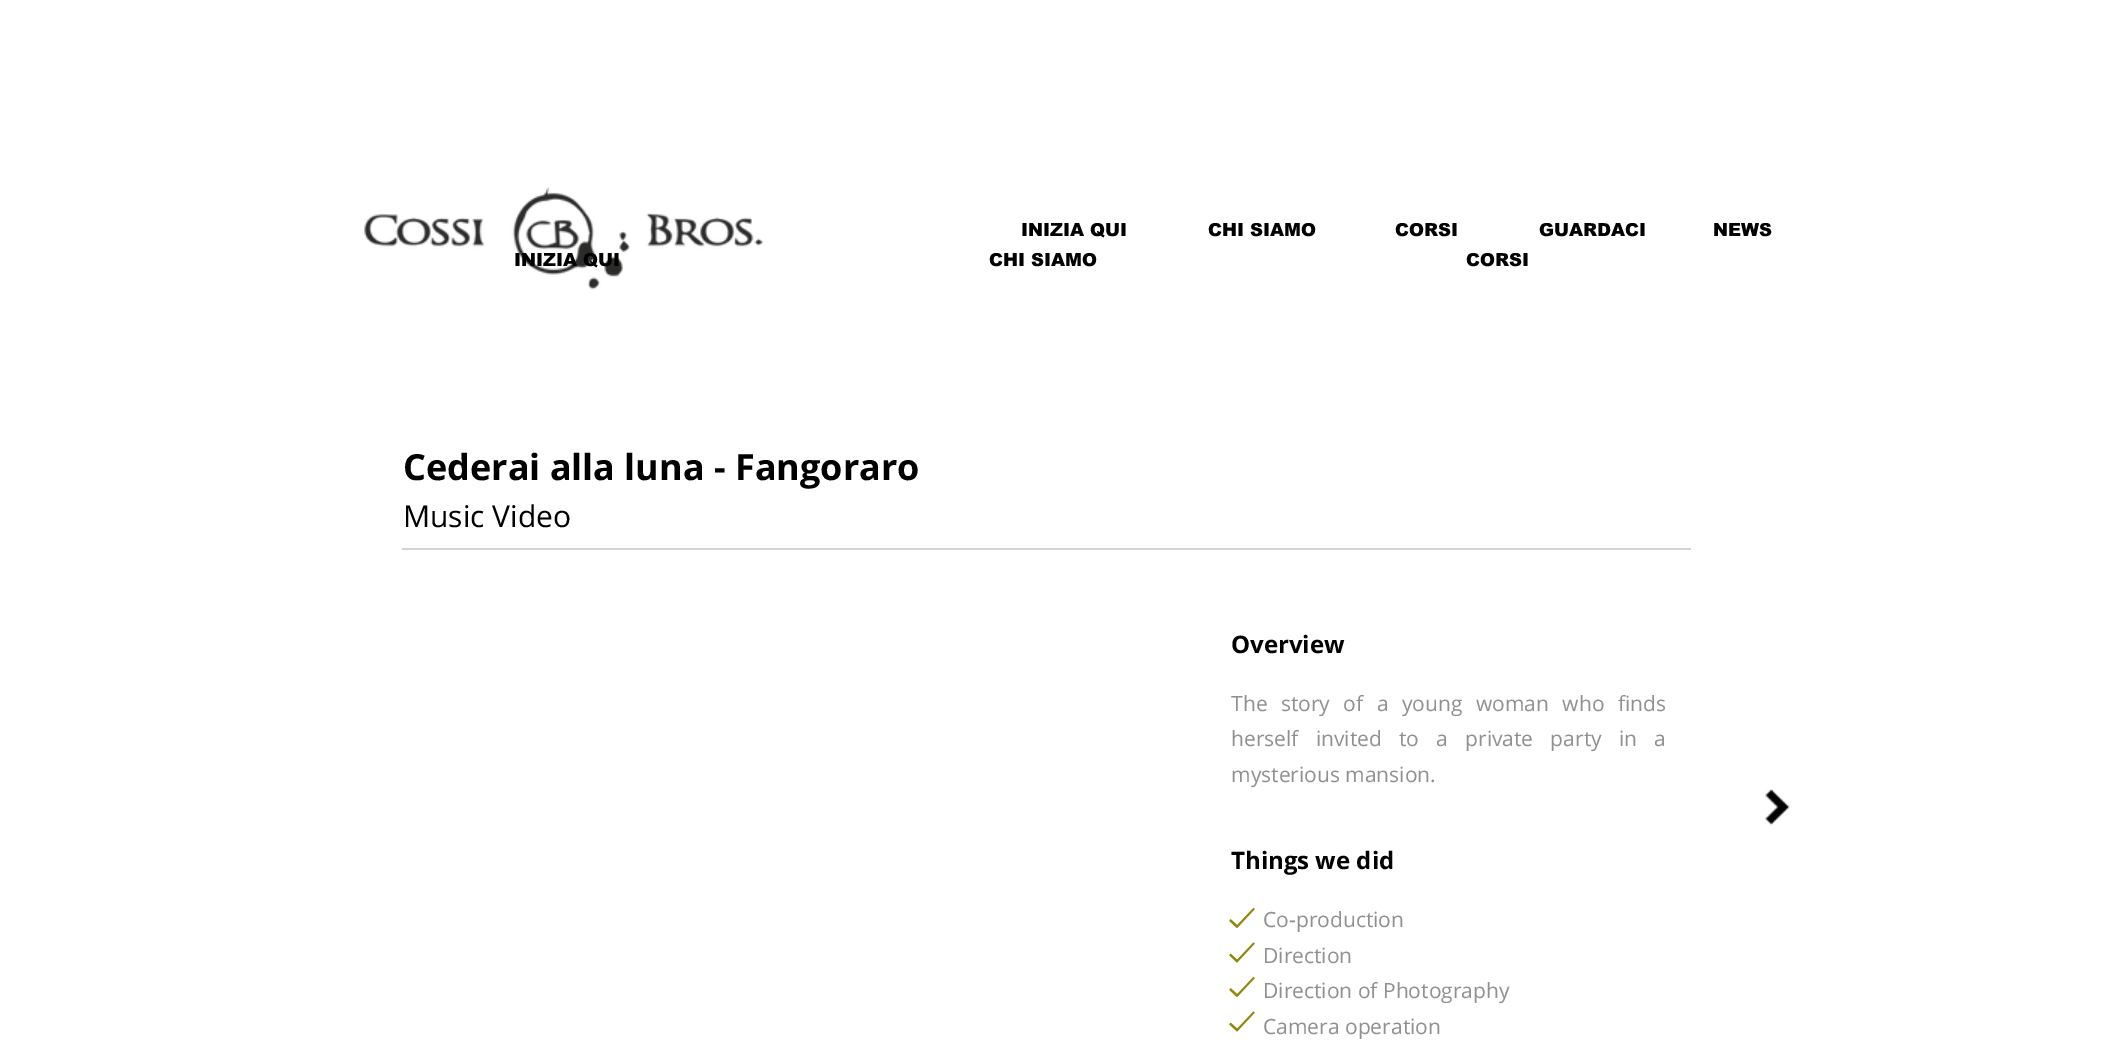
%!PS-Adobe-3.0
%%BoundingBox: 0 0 2113 1050
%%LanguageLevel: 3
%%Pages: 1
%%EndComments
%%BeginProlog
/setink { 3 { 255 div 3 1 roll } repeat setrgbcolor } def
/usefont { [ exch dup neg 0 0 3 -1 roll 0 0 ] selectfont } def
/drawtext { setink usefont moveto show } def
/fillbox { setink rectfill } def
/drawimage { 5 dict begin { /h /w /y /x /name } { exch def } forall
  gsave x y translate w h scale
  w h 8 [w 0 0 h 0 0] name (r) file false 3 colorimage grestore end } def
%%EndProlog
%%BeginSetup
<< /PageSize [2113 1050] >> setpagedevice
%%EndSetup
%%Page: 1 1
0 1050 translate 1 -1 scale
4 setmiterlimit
0 0 2113 1050 255 255 255 fillbox
(assets/img1.rgb) 364 187 400 103 drawimage
(INIZIA QUI) 1021 236 /arial-Black 18 0 0 0 drawtext
(CHI SIAMO) 1208 236 /arial-Black 18 0 0 0 drawtext
(CORSI) 1395 236 /arial-Black 18 0 0 0 drawtext
(GUARDACI) 1539 236 /arial-Black 18 0 0 0 drawtext
(NEWS) 1713 236 /arial-Black 18 0 0 0 drawtext
(INIZIA QUI) 514 266 /arial-Black 18 0 0 0 drawtext
(CHI SIAMO) 989 266 /arial-Black 18 0 0 0 drawtext
(CORSI) 1466 266 /arial-Black 18 0 0 0 drawtext
(Cederai alla luna - Fangoraro) 403 480 /OpenSans-Bold 36 0 0 0 drawtext
402 548 1289 2 212 212 212 fillbox
(Overview) 1231 653 /OpenSans-Bold 24 0 0 0 drawtext
/OpenSans-Regular 21 usefont
144 144 144 setink
1231 711 moveto 8 0 32 (The story of a young woman who finds) widthshow
1231 746 moveto 11.75 0 32 (herself invited to a private party in a) widthshow
(mysterious mansion.) 1231 782 /OpenSans-Regular 21 144 144 144 drawtext
(Things we did) 1231 869 /OpenSans-Bold 24 0 0 0 drawtext
(Co-production) 1263 927 /OpenSans-Regular 21 144 144 144 drawtext
(Direction) 1263 963 /OpenSans-Regular 21 144 144 144 drawtext
(Direction of Photography) 1263 998 /OpenSans-Regular 21 144 144 144 drawtext
(Camera operation) 1263 1034 /OpenSans-Regular 21 144 144 144 drawtext
(assets/img2.rgb) 1229 907 26 22 drawimage
(assets/img3.rgb) 1229 942 26 21 drawimage
(assets/img2.rgb) 1229 976 26 22 drawimage
(assets/img3.rgb) 1229 1011 26 21 drawimage
(Music Video) 403 527 /OpenSans-Regular 30 0 0 0 drawtext
(assets/img4.rgb) 1765 789 25 37 drawimage
showpage
%%EOF
